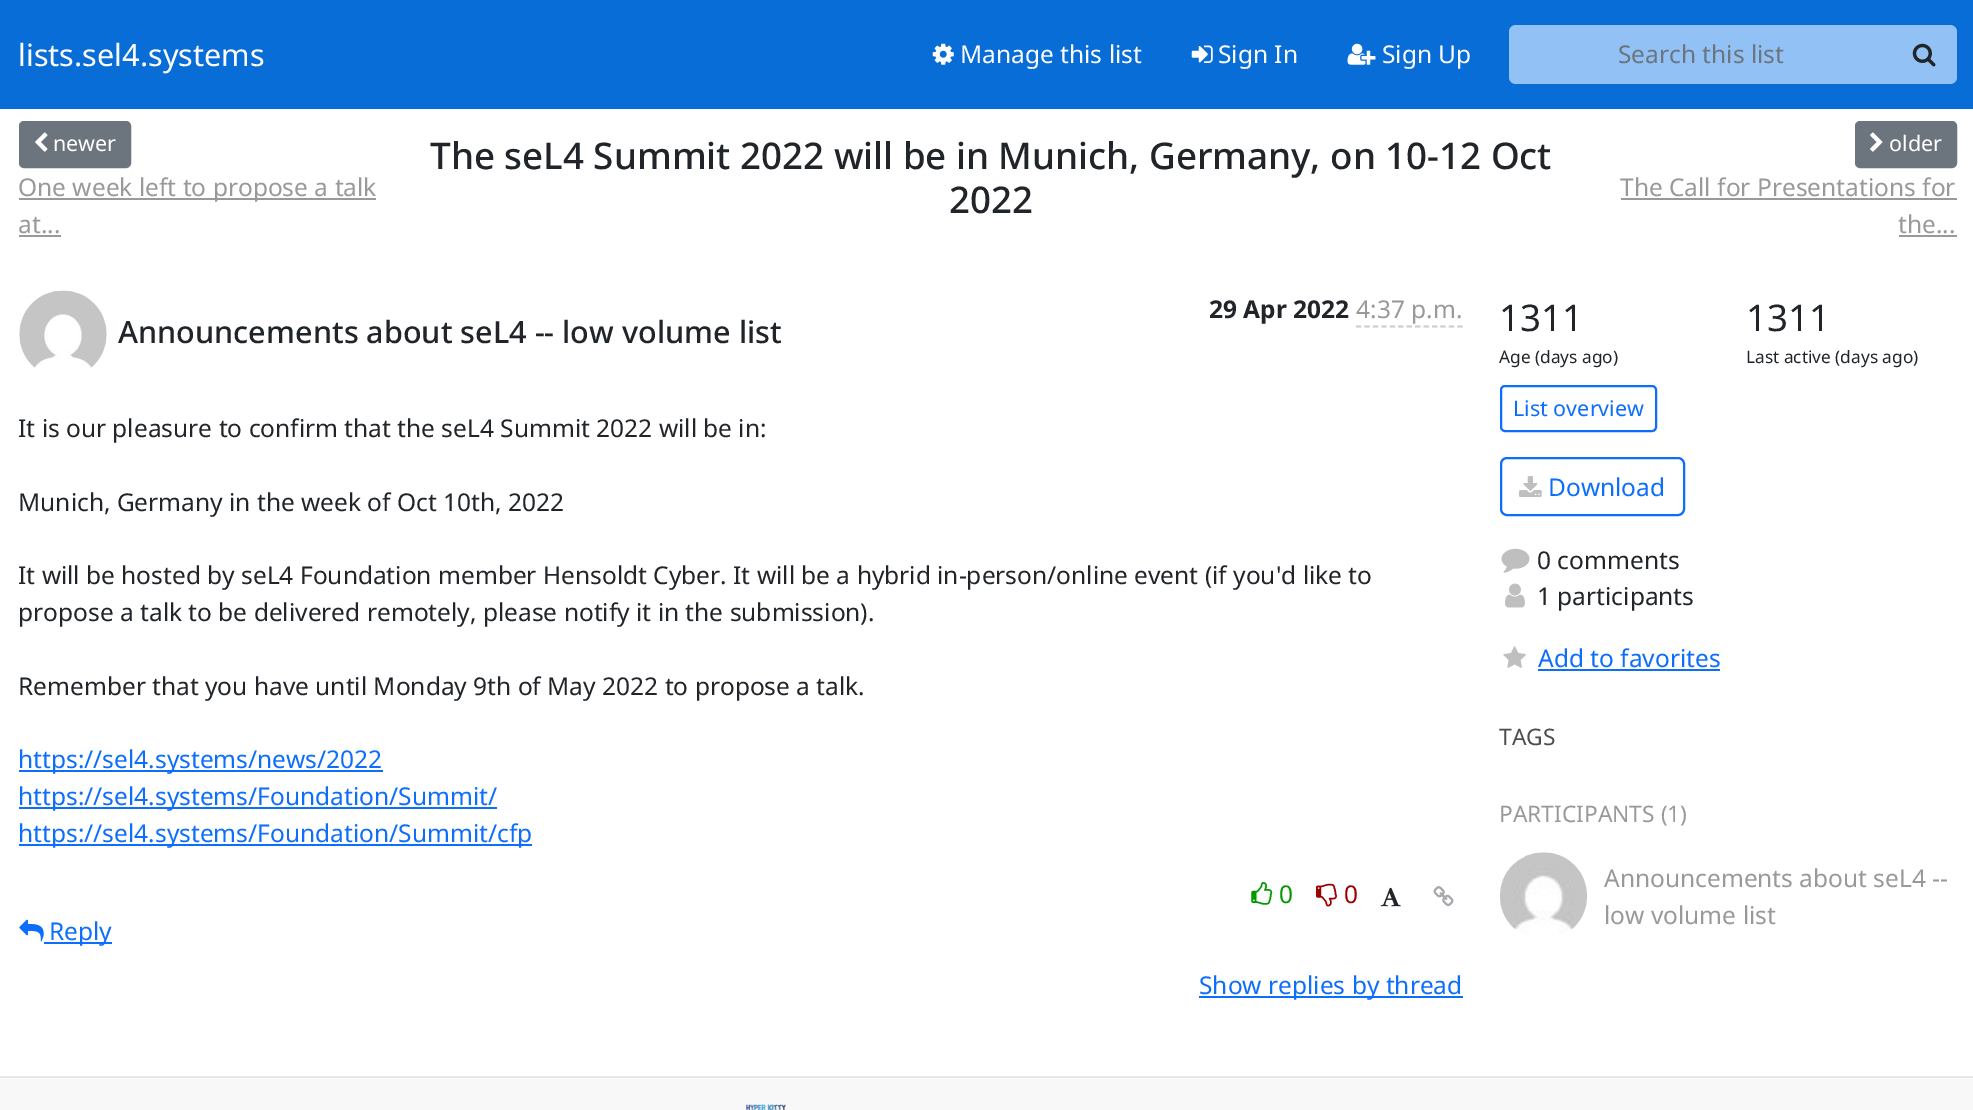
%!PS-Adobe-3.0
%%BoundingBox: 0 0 1973 1110
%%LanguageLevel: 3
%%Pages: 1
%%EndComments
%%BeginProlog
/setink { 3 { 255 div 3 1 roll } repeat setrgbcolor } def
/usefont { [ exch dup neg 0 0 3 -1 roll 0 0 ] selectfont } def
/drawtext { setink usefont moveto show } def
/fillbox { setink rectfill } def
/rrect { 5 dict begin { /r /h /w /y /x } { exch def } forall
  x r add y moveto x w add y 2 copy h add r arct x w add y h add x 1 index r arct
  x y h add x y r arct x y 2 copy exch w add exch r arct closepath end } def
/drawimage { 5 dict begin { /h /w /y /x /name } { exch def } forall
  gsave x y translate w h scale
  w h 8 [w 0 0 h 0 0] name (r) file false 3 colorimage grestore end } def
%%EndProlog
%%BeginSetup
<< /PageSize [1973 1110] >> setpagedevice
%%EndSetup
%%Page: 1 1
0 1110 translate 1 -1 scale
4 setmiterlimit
0 0 1973 1110 255 255 255 fillbox
0 0 1973 109 8 109 215 fillbox
(lists.sel4.systems) 18 66 /NotoSans-Regular 30.6 255 255 255 drawtext
(assets/img1.rgb) 932 43 22 22 drawimage
(Manage this list) 960 63 /NotoSans-Regular 24.5 255 255 255 drawtext
(assets/img2.rgb) 1191 45 22 18 drawimage
(Sign In) 1218 63 /NotoSans-Regular 24.5 255 255 255 drawtext
(assets/img3.rgb) 1347 43 29 22 drawimage
(Sign Up) 1382 63 /NotoSans-Regular 24.5 255 255 255 drawtext
146 194 245 setink
1516 25 moveto 1895 25 lineto 1895 84 lineto 1516 84 lineto 1512 84 1509 81 1509 77 curveto 1509 32 lineto 1509 28 1512 25 1516 25 curveto closepath fill
(Search this list) 1618 63 /NotoSans-Regular 24.5 108 117 125 drawtext
146 194 245 setink
1894 25 moveto 1950 25 lineto 1954 25 1957 28 1957 32 curveto 1957 77 lineto 1957 81 1954 84 1950 84 curveto 1894 84 lineto closepath fill
(assets/img4.rgb) 1912 43 24 24 drawimage
108 117 125 setink
20 122 110 45 4 rrect gsave fill grestore
2 setlinewidth
stroke
(assets/img5.rgb) 35 132 13 20 drawimage
(newer) 53 151 /NotoSans-Regular 21.5 255 255 255 drawtext
19 198 357 2 153 153 153 fillbox
(One week left to propose a talk) 18 196 /NotoSans-Regular 24.5 153 153 153 drawtext
(at...) 18 233 /NotoSans-Regular 24.5 153 153 153 drawtext
19 235 42 2 153 153 153 fillbox
(The seL4 Summit 2022 will be in Munich, Germany, on 10-12 Oct) 430 169 /NotoSans-Medium 36.75 33 37 41 drawtext
(2022) 949 213 /NotoSans-Medium 36.75 33 37 41 drawtext
108 117 125 setink
1856 122 100 45 4 rrect gsave fill grestore
stroke
(assets/img6.rgb) 1870 132 13 20 drawimage
(older) 1889 151 /NotoSans-Regular 21.5 255 255 255 drawtext
(The Call for Presentations for) 1620 196 /NotoSans-Regular 24.5 153 153 153 drawtext
1621 198 336 2 153 153 153 fillbox
(the...) 1898 233 /NotoSans-Regular 24.5 153 153 153 drawtext
1899 235 58 2 153 153 153 fillbox
(29 Apr 2022) 1209 318 /NotoSans-Bold 24.5 33 37 41 drawtext
(4:37 p.m.) 1356 318 /NotoSans-Regular 24.5 153 153 153 drawtext
204 204 204 setink
1.8 setlinewidth
[5.25 3.2] 0 setdash
1356 326.5 moveto 1463 326.5 lineto stroke
(assets/img7.rgb) 19 290 88 78 drawimage
(Announcements about seL4 -- low volume list) 118 343 /NotoSans-Medium 30.6 33 37 41 drawtext
(It is our pleasure to confirm that the seL4 Summit 2022 will be in:) 18 437 /NotoSans-Regular 24.5 33 37 41 drawtext
(Munich, Germany in the week of Oct 10th, 2022) 18 511 /NotoSans-Regular 24.5 33 37 41 drawtext
(It will be hosted by seL4 Foundation member Hensoldt Cyber. It will be a hybrid in-person/online event \(if you'd like to) 18 584 /NotoSans-Regular 24.5 33 37 41 drawtext
(propose a talk to be delivered remotely, please notify it in the submission\).) 18 621 /NotoSans-Regular 24.5 33 37 41 drawtext
(Remember that you have until Monday 9th of May 2022 to propose a talk.) 18 695 /NotoSans-Regular 24.5 33 37 41 drawtext
19 770 364 2 13 110 253 fillbox
(https://sel4.systems/news/2022) 18 768 /NotoSans-Regular 24.5 13 110 253 drawtext
19 807 478 2 13 110 253 fillbox
(https://sel4.systems/Foundation/Summit/) 18 805 /NotoSans-Regular 24.5 13 110 253 drawtext
19 844 513 2 13 110 253 fillbox
(https://sel4.systems/Foundation/Summit/cfp) 18 842 /NotoSans-Regular 24.5 13 110 253 drawtext
(assets/img8.rgb) 1251 882 22 23 drawimage
(0) 1279 903 /NotoSans-Regular 24.5 0 153 0 drawtext
(assets/img9.rgb) 1316 883 21 24 drawimage
(0) 1344 903 /NotoSans-Regular 24.5 153 0 0 drawtext
(assets/img10.rgb) 1380 887 21 20 drawimage
(assets/img11.rgb) 1433 886 21 21 drawimage
(assets/img12.rgb) 19 919 25 23 drawimage
44 942 68 2 13 110 253 fillbox
(Reply) 49 940 /NotoSans-Regular 24.5 13 110 253 drawtext
1199 996 264 2 13 110 253 fillbox
(Show replies by thread) 1199 994 /NotoSans-Regular 24.5 13 110 253 drawtext
(1311) 1499 331 /NotoSans-Regular 36.75 33 37 41 drawtext
(Age \(days ago\)) 1499 363 /NotoSans-Regular 17.25 33 37 41 drawtext
(1311) 1746 331 /NotoSans-Regular 36.75 33 37 41 drawtext
(Last active \(days ago\)) 1746 363 /NotoSans-Regular 17.25 33 37 41 drawtext
13 110 253 setink
2 setlinewidth
[] 0 setdash
1501 386 155 45 4 rrect stroke
(List overview) 1513 416 /NotoSans-Regular 21.5 13 110 253 drawtext
1501 458 183 57 6 rrect stroke
(assets/img13.rgb) 1519 476 23 21 drawimage
(Download) 1548 496 /NotoSans-Regular 24.5 13 110 253 drawtext
(assets/img14.rgb) 1501 548 29 25 drawimage
(0 comments) 1537 569 /NotoSans-Regular 24.5 33 37 41 drawtext
(assets/img15.rgb) 1505 583 20 25 drawimage
(1 participants) 1537 605 /NotoSans-Regular 24.5 33 37 41 drawtext
(assets/img16.rgb) 1503 646 23 22 drawimage
(Add to favorites) 1538 667 /NotoSans-Regular 24.5 13 110 253 drawtext
1538 669 182 2 13 110 253 fillbox
(TAGS) 1499 745 /NotoSans-Regular 22.75 77 77 77 drawtext
(PARTICIPANTS \(1\)) 1499 822 /NotoSans-Regular 22.75 153 153 153 drawtext
(assets/img17.rgb) 1500 852 87 82 drawimage
(Announcements about seL4 --) 1604 887 /NotoSans-Regular 24.5 153 153 153 drawtext
(low volume list) 1604 924 /NotoSans-Regular 24.5 153 153 153 drawtext
0 1078 1973 32 248 248 248 fillbox
0 1076 1973 2 231 231 231 fillbox
(assets/img18.rgb) 745 1104 41 6 drawimage
showpage
%%EOF
